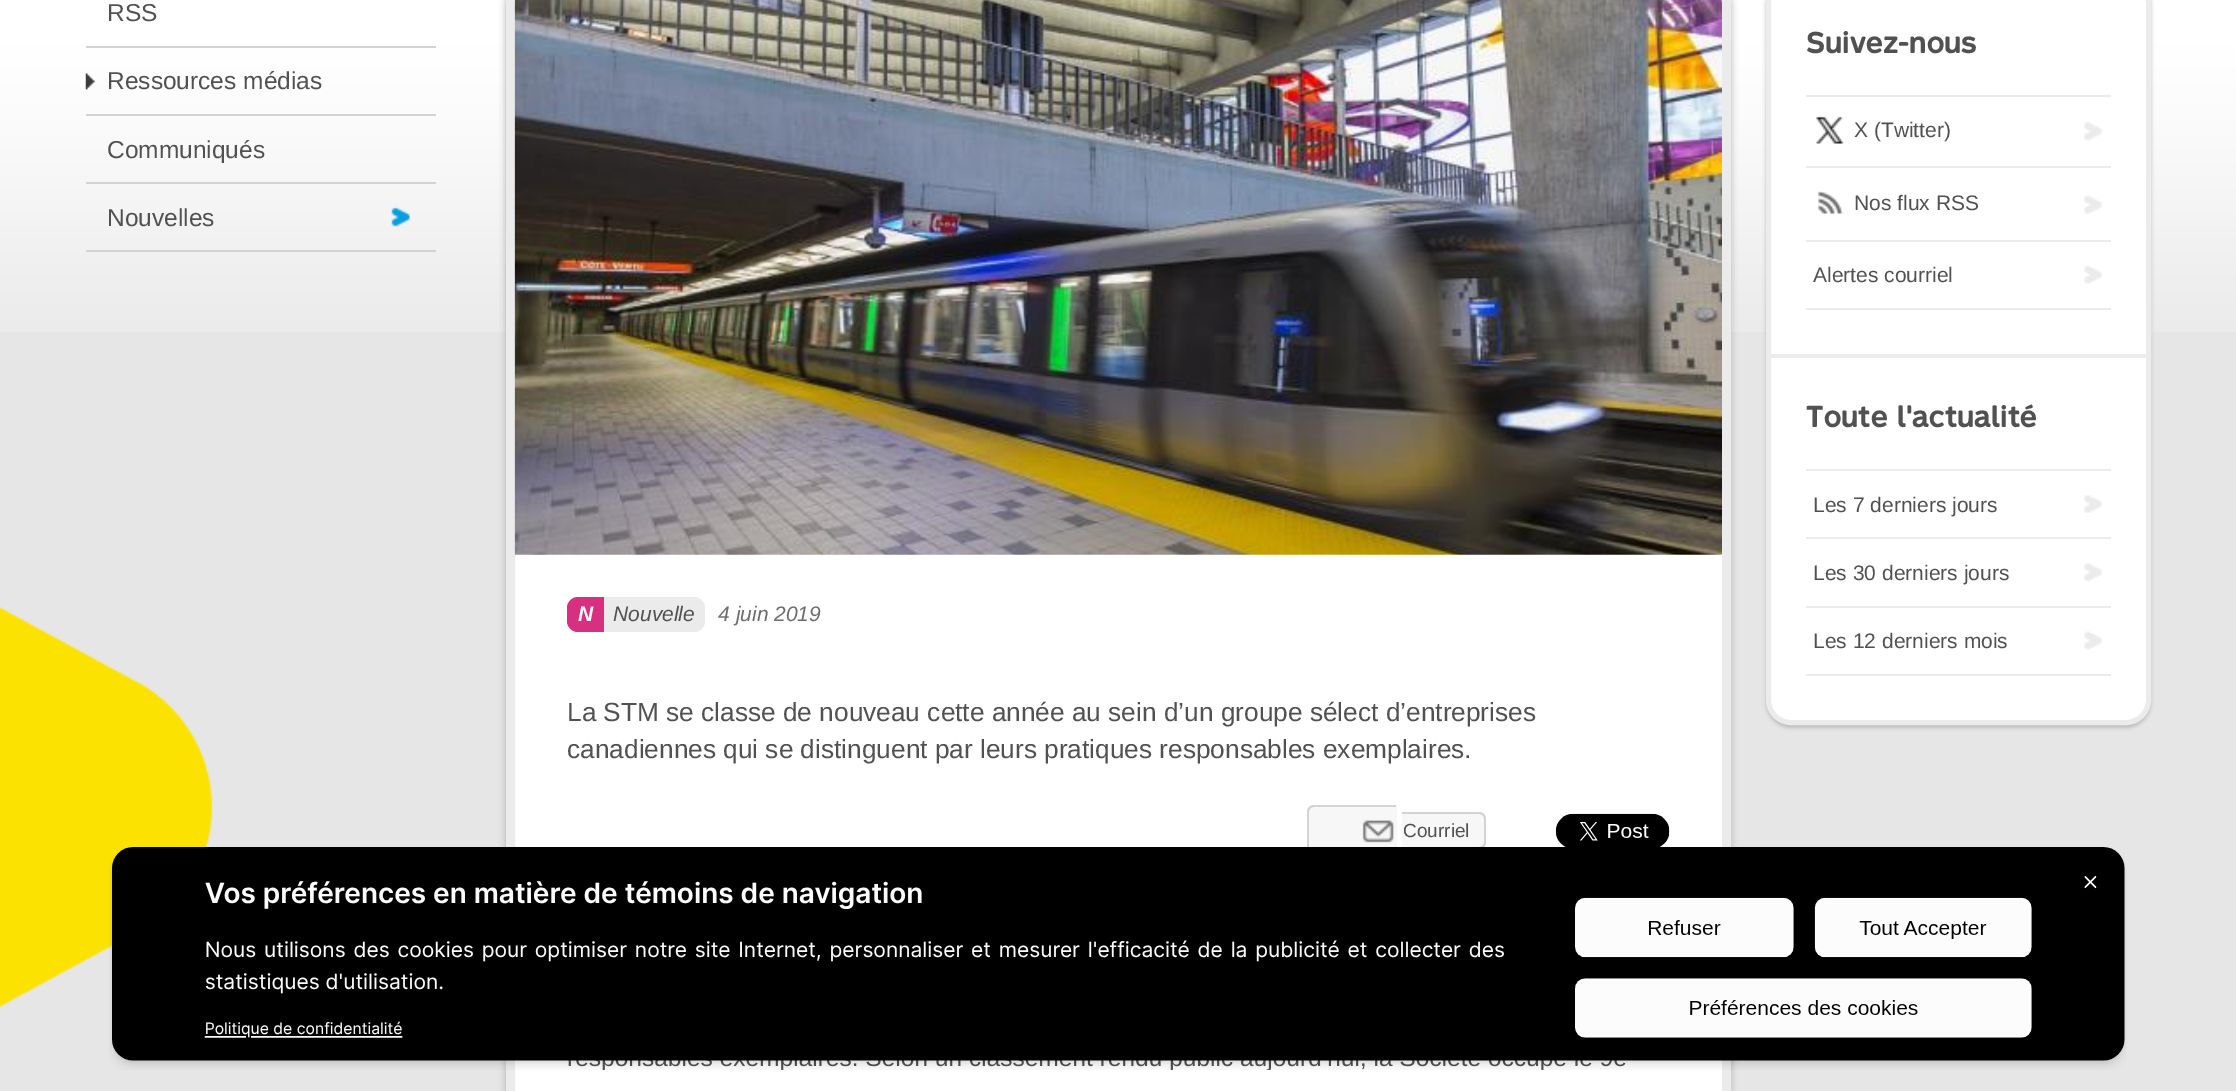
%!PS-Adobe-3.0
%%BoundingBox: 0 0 2236 1091
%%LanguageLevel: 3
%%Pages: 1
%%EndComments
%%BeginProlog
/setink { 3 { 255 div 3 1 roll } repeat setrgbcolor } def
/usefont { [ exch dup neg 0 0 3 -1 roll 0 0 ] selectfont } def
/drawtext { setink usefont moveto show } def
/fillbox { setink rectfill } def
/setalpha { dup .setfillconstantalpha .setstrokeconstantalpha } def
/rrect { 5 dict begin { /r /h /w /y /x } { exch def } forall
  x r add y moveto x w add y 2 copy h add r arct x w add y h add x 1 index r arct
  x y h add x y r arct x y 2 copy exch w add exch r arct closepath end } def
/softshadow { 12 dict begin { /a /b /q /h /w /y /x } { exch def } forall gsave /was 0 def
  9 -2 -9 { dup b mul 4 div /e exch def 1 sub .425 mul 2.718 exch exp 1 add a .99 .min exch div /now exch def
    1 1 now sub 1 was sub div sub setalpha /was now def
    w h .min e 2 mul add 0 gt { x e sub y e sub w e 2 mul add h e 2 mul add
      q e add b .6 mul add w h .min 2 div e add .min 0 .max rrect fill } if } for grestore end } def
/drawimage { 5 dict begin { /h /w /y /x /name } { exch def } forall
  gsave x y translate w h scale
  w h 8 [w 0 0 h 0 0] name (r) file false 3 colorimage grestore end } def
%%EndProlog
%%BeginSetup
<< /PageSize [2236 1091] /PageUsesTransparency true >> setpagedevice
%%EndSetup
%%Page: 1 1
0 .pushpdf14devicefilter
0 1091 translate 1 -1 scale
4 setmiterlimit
0 0 2236 1091 230 230 230 fillbox
(assets/img1.rgb) 0 0 2236 332 drawimage
(assets/img2.rgb) 0 607 213 401 drawimage
86 250 350 2 211 211 211 fillbox
(RSS) 107 21 /LiberationSans-Regular 24.5 81 81 81 drawtext
86 46 350 2 211 211 211 fillbox
(assets/img3.rgb) 85 73 10 17 drawimage
(Ressources médias) 107 89 /LiberationSans-Regular 24.5 81 81 81 drawtext
86 114 350 2 211 211 211 fillbox
(Communiqués) 107 158 /LiberationSans-Regular 24.5 81 81 81 drawtext
86 182 350 2 211 211 211 fillbox
(Nouvelles) 107 226 /LiberationSans-Regular 24.5 81 81 81 drawtext
(assets/img4.rgb) 391 207 19 20 drawimage
188 188 188 setink
1766 -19 385 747 25 2 1 softshadow
255 255 255 setink
1768.5 -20.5 380 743 22.5 rrect gsave fill grestore
235 235 235 setink
5 setlinewidth
stroke
1771 354 375 4 235 235 235 fillbox
(Suivez-nous) 1806 53 /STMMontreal-Bold 28 81 81 81 drawtext
1806 95 305 2 235 235 235 fillbox
1806 166 305 2 235 235 235 fillbox
(assets/img5.rgb) 1816 116 28 28 drawimage
(X \(Twitter\)) 1854 137 /LiberationSans-Regular 21 81 81 81 drawtext
(assets/img6.rgb) 2084 122 18 19 drawimage
1806 240 305 2 235 235 235 fillbox
(assets/img7.rgb) 1817 190 27 24 drawimage
(Nos flux RSS) 1854 210 /LiberationSans-Regular 21 81 81 81 drawtext
(assets/img8.rgb) 2084 195 18 19 drawimage
1806 308 305 2 235 235 235 fillbox
(Alertes courriel) 1813 282 /LiberationSans-Regular 21 81 81 81 drawtext
(assets/img8.rgb) 2084 265 18 19 drawimage
(Toute l'actualité) 1806 427 /STMMontreal-Bold 28 81 81 81 drawtext
1806 469 305 2 235 235 235 fillbox
1806 537 305 2 235 235 235 fillbox
(Les 7 derniers jours) 1813 512 /LiberationSans-Regular 21 81 81 81 drawtext
(assets/img9.rgb) 2084 495 18 18 drawimage
1806 606 305 2 235 235 235 fillbox
(Les 30 derniers jours) 1813 580 /LiberationSans-Regular 21 81 81 81 drawtext
(assets/img6.rgb) 2084 563 18 19 drawimage
1806 674 305 2 235 235 235 fillbox
(Les 12 derniers mois) 1813 648 /LiberationSans-Regular 21 81 81 81 drawtext
(assets/img10.rgb) 2084 631 18 19 drawimage
170 170 170 setink
506 -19 1225 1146 25 3.5 1 softshadow
255 255 255 setink
510.5 -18.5 1216 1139 20.5 rrect gsave fill grestore
235 235 235 setink
9 setlinewidth
stroke
(assets/img11.rgb) 514 0 1208 555 drawimage
602 597 moveto 694 597 lineto 700 597 705 602 705 608 curveto 705 621 lineto 705 627 700 632 694 632 curveto 602 632 lineto closepath fill
216 48 128 setink
578 597 moveto 604 597 lineto 604 632 lineto 578 632 lineto 572 632 567 627 567 621 curveto 567 608 lineto 567 602 572 597 578 597 curveto closepath fill
(N) 578 621 /LiberationSans-BoldItalic 21 255 255 255 drawtext
(Nouvelle) 613 621 /LiberationSans-Italic 21 81 81 81 drawtext
(4 juin 2019) 718 621 /LiberationSans-Italic 21 109 109 109 drawtext
(La STM se classe de nouveau cette année au sein d’un groupe sélect d’entreprises) 567 721 /LiberationSans-Regular 26.25 81 81 81 drawtext
(canadiennes qui se distinguent par leurs pratiques responsables exemplaires.) 567 758 /LiberationSans-Regular 26.25 81 81 81 drawtext
247 247 247 setink
1314 805 moveto 1397 805 lineto 1397 856 lineto 1314 856 lineto 1310 856 1307 853 1307 849 curveto 1307 812 lineto 1307 808 1310 805 1314 805 curveto closepath fill
211 211 211 setink
1314 805 moveto 1396 805 lineto 1396 856 lineto 1314 856 lineto 1310 856 1307 853 1307 849 curveto 1307 812 lineto 1307 808 1310 805 1314 805 curveto closepath 1314 807 moveto 1396 807 lineto 1396 854 lineto 1314 854 lineto 1311 854 1309 852 1309 849 curveto 1309 812 lineto 1309 809 1311 807 1314 807 curveto closepath eofill
247 247 247 setink
1402 812 moveto 1479 812 lineto 1483 812 1486 815 1486 819 curveto 1486 842 lineto 1486 846 1483 849 1479 849 curveto 1402 849 lineto closepath fill
211 211 211 setink
1402 812 moveto 1479 812 lineto 1483 812 1486 815 1486 819 curveto 1486 842 lineto 1486 846 1483 849 1479 849 curveto 1402 849 lineto closepath 1402 814 moveto 1479 814 lineto 1482 814 1484 816 1484 819 curveto 1484 842 lineto 1484 845 1482 847 1479 847 curveto 1402 847 lineto closepath eofill
(assets/img12.rgb) 1362 820 32 23 drawimage
(Courriel) 1403 837 /LiberationSans-Regular 19 81 81 81 drawtext
(assets/img13.rgb) 1555 813 115 34 drawimage
(.) 852 1066 /LiberationSans-Regular 24.5 81 81 81 drawtext
(,) 1360 1066 /LiberationSans-Regular 24.5 81 81 81 drawtext
(assets/img14.rgb) 109 847 2018 223 drawimage
.poppdf14devicefilter showpage
%%EOF
